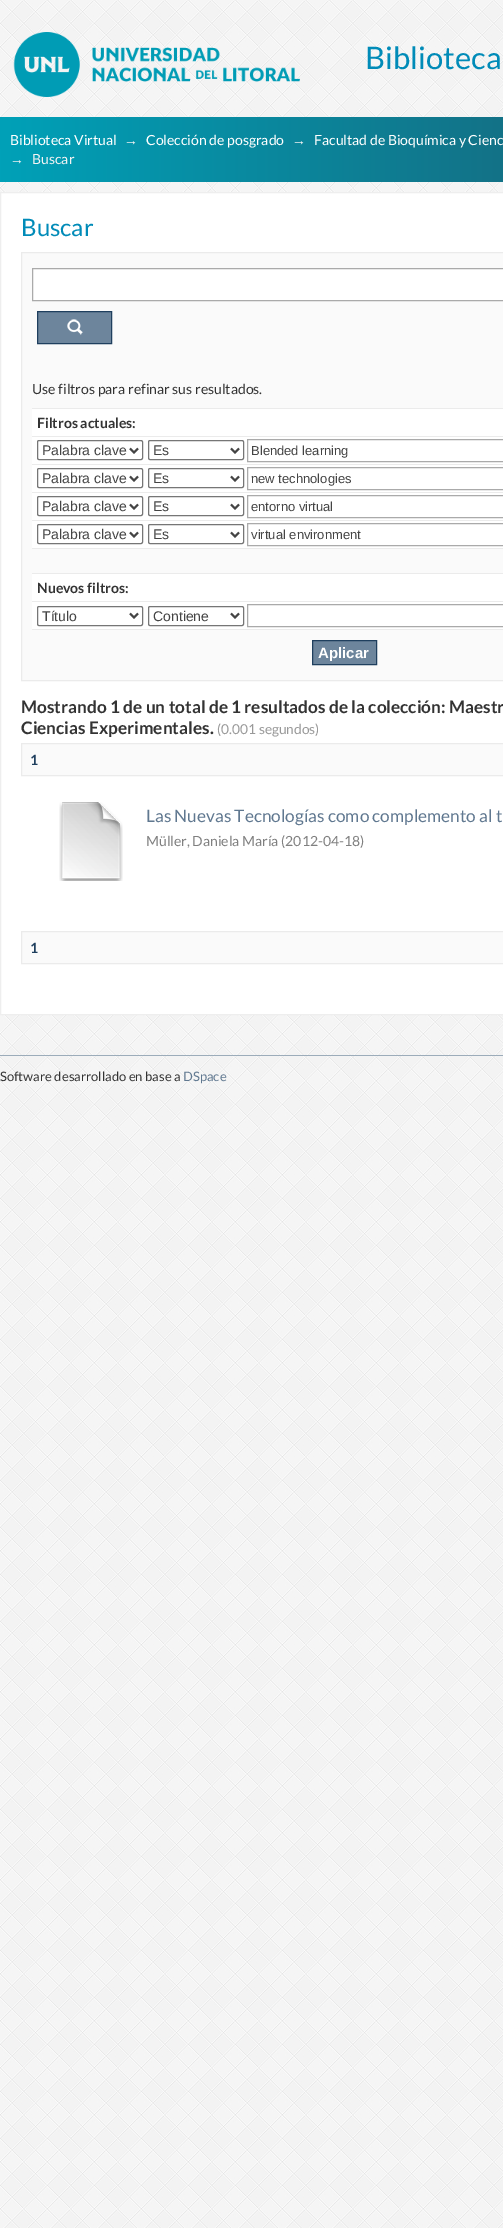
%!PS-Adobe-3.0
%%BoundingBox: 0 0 503 2228
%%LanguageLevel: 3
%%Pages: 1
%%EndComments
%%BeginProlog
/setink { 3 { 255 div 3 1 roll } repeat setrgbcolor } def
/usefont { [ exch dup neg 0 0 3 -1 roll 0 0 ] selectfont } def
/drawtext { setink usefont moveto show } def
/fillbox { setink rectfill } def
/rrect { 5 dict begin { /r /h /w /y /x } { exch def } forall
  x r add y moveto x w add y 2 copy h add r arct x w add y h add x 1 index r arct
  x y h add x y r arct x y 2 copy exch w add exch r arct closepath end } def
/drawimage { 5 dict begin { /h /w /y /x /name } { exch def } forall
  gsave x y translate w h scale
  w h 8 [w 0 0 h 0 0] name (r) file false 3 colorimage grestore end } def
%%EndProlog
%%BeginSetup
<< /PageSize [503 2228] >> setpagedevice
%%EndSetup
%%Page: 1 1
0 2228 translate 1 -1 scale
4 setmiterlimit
0 0 503 2228 255 255 255 fillbox
(assets/img1.rgb) 0 0 503 2228 drawimage
(assets/img2.rgb) 13 32 287 65 drawimage
(Biblioteca) 365 69 /Lato-Regular 31 0 139 184 drawtext
gsave 0 117 moveto 503 117 lineto 503 182 lineto 0 182 lineto closepath clip newpath
<< /ShadingType 2 /ColorSpace /DeviceRGB /Coords [0 150 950 149] /Extend [true true] /Function << /FunctionType 2 /Domain [0 1] /C0 [0 0.631 0.722] /C1 [0.137 0.286 0.361] /N 1 >> >> shfill grestore
(Biblioteca Virtual) 10 145 /Lato-Regular 14 255 255 255 drawtext
(→) 124 145 /LiberationSans-Regular 14 243 243 243 drawtext
(Colección de posgrado) 146 145 /Lato-Regular 14 255 255 255 drawtext
(→) 292 145 /LiberationSans-Regular 14 243 243 243 drawtext
(Facultad de Bioquímica y Cienc) 314 145 /Lato-Regular 14 255 255 255 drawtext
(→) 10 164 /LiberationSans-Regular 14 243 243 243 drawtext
(Buscar) 32 164 /Lato-Regular 14 243 243 243 drawtext
255 255 255 setink
0.5 192.5 moveto 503.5 192.5 lineto 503.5 1014.5 lineto 0.5 1014.5 lineto closepath gsave fill grestore
238 238 238 setink
stroke
(Buscar) 21 236 /Lato-Regular 24 0 139 184 drawtext
250 250 250 setink
21.5 252.5 moveto 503.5 252.5 lineto 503.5 680.5 lineto 21.5 680.5 lineto closepath gsave fill grestore
235 235 235 setink
stroke
255 255 255 setink
32.5 268.5 moveto 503.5 268.5 lineto 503.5 300.5 lineto 32.5 300.5 lineto closepath gsave fill grestore
170 170 170 setink
stroke
38 312 73 31 109 133 156 fillbox
(assets/img3.rgb) 67 319 16 16 drawimage
31 63 94 setink
37.5 311.5 74 32 rectstroke
(Use filtros para refinar sus resultados.) 32 394 /Lato-Regular 14 51 51 51 drawtext
32 409 471 220 255 255 255 fillbox
32 408 471 1 235 235 235 fillbox
(Filtros actuales:) 37 428 /Lato-Bold 14 51 51 51 drawtext
32 436 471 1 235 235 235 fillbox
118 118 118 setink
37.5 440.5 105 19 1.5 rrect stroke
68 68 68 setink
2 setlinewidth
130 448.5 moveto 134 452.5 lineto 138 448.5 lineto stroke
(Palabra clave) 42 455 /LiberationSans-Regular 14 68 68 68 drawtext
118 118 118 setink
1 setlinewidth
148.5 440.5 95 19 1.5 rrect stroke
68 68 68 setink
2 setlinewidth
231 448.5 moveto 235 452.5 lineto 239 448.5 lineto stroke
(Es) 153 455 /LiberationSans-Regular 14 68 68 68 drawtext
170 170 170 setink
1 setlinewidth
247.5 439.5 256 22 rectstroke
(Blended learning) 251 455 /LiberationSans-Regular 13 68 68 68 drawtext
32 464 471 1 235 235 235 fillbox
118 118 118 setink
37.5 468.5 105 19 1.5 rrect stroke
68 68 68 setink
2 setlinewidth
130 476.5 moveto 134 480.5 lineto 138 476.5 lineto stroke
(Palabra clave) 42 483 /LiberationSans-Regular 14 68 68 68 drawtext
118 118 118 setink
1 setlinewidth
148.5 468.5 95 19 1.5 rrect stroke
68 68 68 setink
2 setlinewidth
231 476.5 moveto 235 480.5 lineto 239 476.5 lineto stroke
(Es) 153 483 /LiberationSans-Regular 14 68 68 68 drawtext
170 170 170 setink
1 setlinewidth
247.5 467.5 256 22 rectstroke
(new technologies) 251 483 /LiberationSans-Regular 13 68 68 68 drawtext
32 492 471 1 235 235 235 fillbox
118 118 118 setink
37.5 496.5 105 19 1.5 rrect stroke
68 68 68 setink
2 setlinewidth
130 504.5 moveto 134 508.5 lineto 138 504.5 lineto stroke
(Palabra clave) 42 511 /LiberationSans-Regular 14 68 68 68 drawtext
118 118 118 setink
1 setlinewidth
148.5 496.5 95 19 1.5 rrect stroke
68 68 68 setink
2 setlinewidth
231 504.5 moveto 235 508.5 lineto 239 504.5 lineto stroke
(Es) 153 511 /LiberationSans-Regular 14 68 68 68 drawtext
170 170 170 setink
1 setlinewidth
247.5 495.5 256 22 rectstroke
(entorno virtual) 251 511 /LiberationSans-Regular 13 68 68 68 drawtext
32 520 471 1 235 235 235 fillbox
118 118 118 setink
37.5 524.5 105 19 1.5 rrect stroke
68 68 68 setink
2 setlinewidth
130 532.5 moveto 134 536.5 lineto 138 532.5 lineto stroke
(Palabra clave) 42 539 /LiberationSans-Regular 14 68 68 68 drawtext
118 118 118 setink
1 setlinewidth
148.5 524.5 95 19 1.5 rrect stroke
68 68 68 setink
2 setlinewidth
231 532.5 moveto 235 536.5 lineto 239 532.5 lineto stroke
(Es) 153 539 /LiberationSans-Regular 14 68 68 68 drawtext
170 170 170 setink
1 setlinewidth
247.5 523.5 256 22 rectstroke
(virtual environment) 251 539 /LiberationSans-Regular 13 68 68 68 drawtext
32 549 471 24 250 250 250 fillbox
32 548 471 1 235 235 235 fillbox
32 573 471 1 235 235 235 fillbox
(Nuevos filtros:) 37 593 /Lato-Bold 14 51 51 51 drawtext
32 601 471 1 235 235 235 fillbox
118 118 118 setink
37.5 606.5 105 19 1.5 rrect stroke
68 68 68 setink
2 setlinewidth
130 613.5 moveto 134 617.5 lineto 138 613.5 lineto stroke
(Título) 42 621 /LiberationSans-Regular 14 68 68 68 drawtext
118 118 118 setink
1 setlinewidth
148.5 606.5 95 19 1.5 rrect stroke
68 68 68 setink
2 setlinewidth
231 613.5 moveto 235 617.5 lineto 239 613.5 lineto stroke
(Contiene) 153 621 /LiberationSans-Regular 14 68 68 68 drawtext
170 170 170 setink
1 setlinewidth
247.5 604.5 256 22 rectstroke
32 629 471 1 235 235 235 fillbox
109 133 156 setink
312.5 640.5 moveto 376.5 640.5 lineto 376.5 664.5 lineto 312.5 664.5 lineto closepath gsave fill grestore
31 63 94 setink
stroke
(Aplicar) 318 658 /LiberationSans-Bold 15 255 255 255 drawtext
(Mostrando 1 de un total de 1 resultados de la colección: Maestr) 21 713 /Lato-Bold 17.25 51 51 51 drawtext
(Ciencias Experimentales.) 21 734 /Lato-Bold 17.25 51 51 51 drawtext
(\(0.001 segundos\)) 217 734 /Lato-Regular 13.75 153 153 153 drawtext
250 250 250 setink
21.5 743.5 moveto 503.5 743.5 lineto 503.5 775.5 lineto 21.5 775.5 lineto closepath gsave fill grestore
235 235 235 setink
stroke
(1) 30 765 /Lato-Bold 14 31 63 94 drawtext
(assets/img4.rgb) 59 802 64 79 drawimage
(Las Nuevas Tecnologías como complemento al t) 146 822 /Lato-Regular 17.25 96 120 144 drawtext
(Müller, Daniela María \(2012-04-18\)) 146 846 /Lato-Regular 14 128 128 128 drawtext
250 250 250 setink
21.5 931.5 moveto 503.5 931.5 lineto 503.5 963.5 lineto 21.5 963.5 lineto closepath gsave fill grestore
235 235 235 setink
stroke
(1) 30 953 /Lato-Bold 14 31 63 94 drawtext
0 1055 503 1 156 172 186 fillbox
(Software desarrollado en base a) 0 1081 /Lato-Regular 13 51 51 51 drawtext
(DSpace) 183 1081 /Lato-Regular 13 96 120 144 drawtext
showpage
%%EOF
